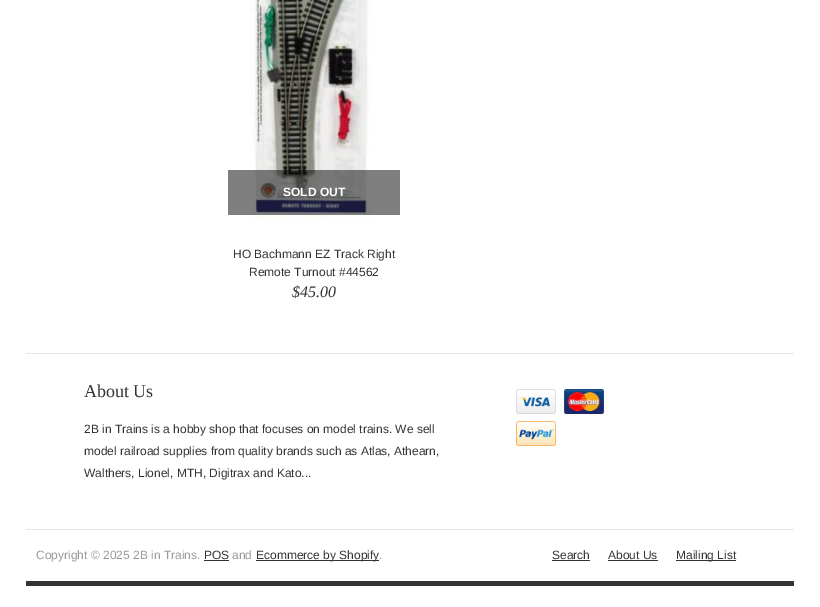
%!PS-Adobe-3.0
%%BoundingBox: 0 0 820 607
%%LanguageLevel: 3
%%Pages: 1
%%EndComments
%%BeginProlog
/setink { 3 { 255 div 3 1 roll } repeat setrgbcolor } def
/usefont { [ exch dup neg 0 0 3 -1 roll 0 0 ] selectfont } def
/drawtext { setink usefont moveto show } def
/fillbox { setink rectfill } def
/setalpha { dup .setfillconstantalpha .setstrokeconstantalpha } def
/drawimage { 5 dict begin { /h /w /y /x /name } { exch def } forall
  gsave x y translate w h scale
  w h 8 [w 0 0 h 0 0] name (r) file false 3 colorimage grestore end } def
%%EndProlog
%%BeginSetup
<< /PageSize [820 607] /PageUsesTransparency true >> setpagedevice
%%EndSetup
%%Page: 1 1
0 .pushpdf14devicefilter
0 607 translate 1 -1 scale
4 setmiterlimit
0 0 820 607 255 255 255 fillbox
(assets/img1.rgb) 243 0 136 222 drawimage
0.5 setalpha
228 170 172 45 0 0 0 fillbox
1 setalpha
(SOLD OUT) 283 196 /LiberationSans-Bold 12 255 255 255 drawtext
(HO Bachmann EZ Track Right) 233 258 /LiberationSans-Regular 12 51 51 51 drawtext
(Remote Turnout #44562) 249 276 /LiberationSans-Regular 12 51 51 51 drawtext
($45.00) 292 297 /LiberationSerif-Italic 16 51 51 51 drawtext
26 581 768 5 51 51 51 fillbox
26 353 768 1 232 232 232 fillbox
(About Us) 84 397 /LiberationSerif-Regular 18 51 51 51 drawtext
(2B in Trains is a hobby shop that focuses on model trains. We sell) 84 433 /LiberationSans-Regular 12 51 51 51 drawtext
(model railroad supplies from quality brands such as Atlas, Athearn,) 84 455 /LiberationSans-Regular 12 51 51 51 drawtext
(Walthers, Lionel, MTH, Digitrax and Kato...) 84 477 /LiberationSans-Regular 12 51 51 51 drawtext
(assets/img2.rgb) 516 389 40 25 drawimage
(assets/img3.rgb) 564 389 40 25 drawimage
(assets/img4.rgb) 516 421 40 25 drawimage
26 529 768 1 232 232 232 fillbox
(Copyright © 2025 2B in Trains.) 36 559 /LiberationSans-Regular 12 153 153 153 drawtext
(POS) 204 559 /LiberationSans-Regular 12 51 51 51 drawtext
204 560 25 1 51 51 51 fillbox
(and) 232 559 /LiberationSans-Regular 12 153 153 153 drawtext
256 560 123 1 51 51 51 fillbox
(Ecommerce by Shopify) 256 559 /LiberationSans-Regular 12 51 51 51 drawtext
(.) 379 559 /LiberationSans-Regular 12 153 153 153 drawtext
(Search) 552 559 /LiberationSans-Regular 12 51 51 51 drawtext
552 560 38 1 51 51 51 fillbox
(About Us) 608 559 /LiberationSans-Regular 12 51 51 51 drawtext
608 560 50 1 51 51 51 fillbox
676 560 60 1 51 51 51 fillbox
(Mailing List) 676 559 /LiberationSans-Regular 12 51 51 51 drawtext
.poppdf14devicefilter showpage
%%EOF
